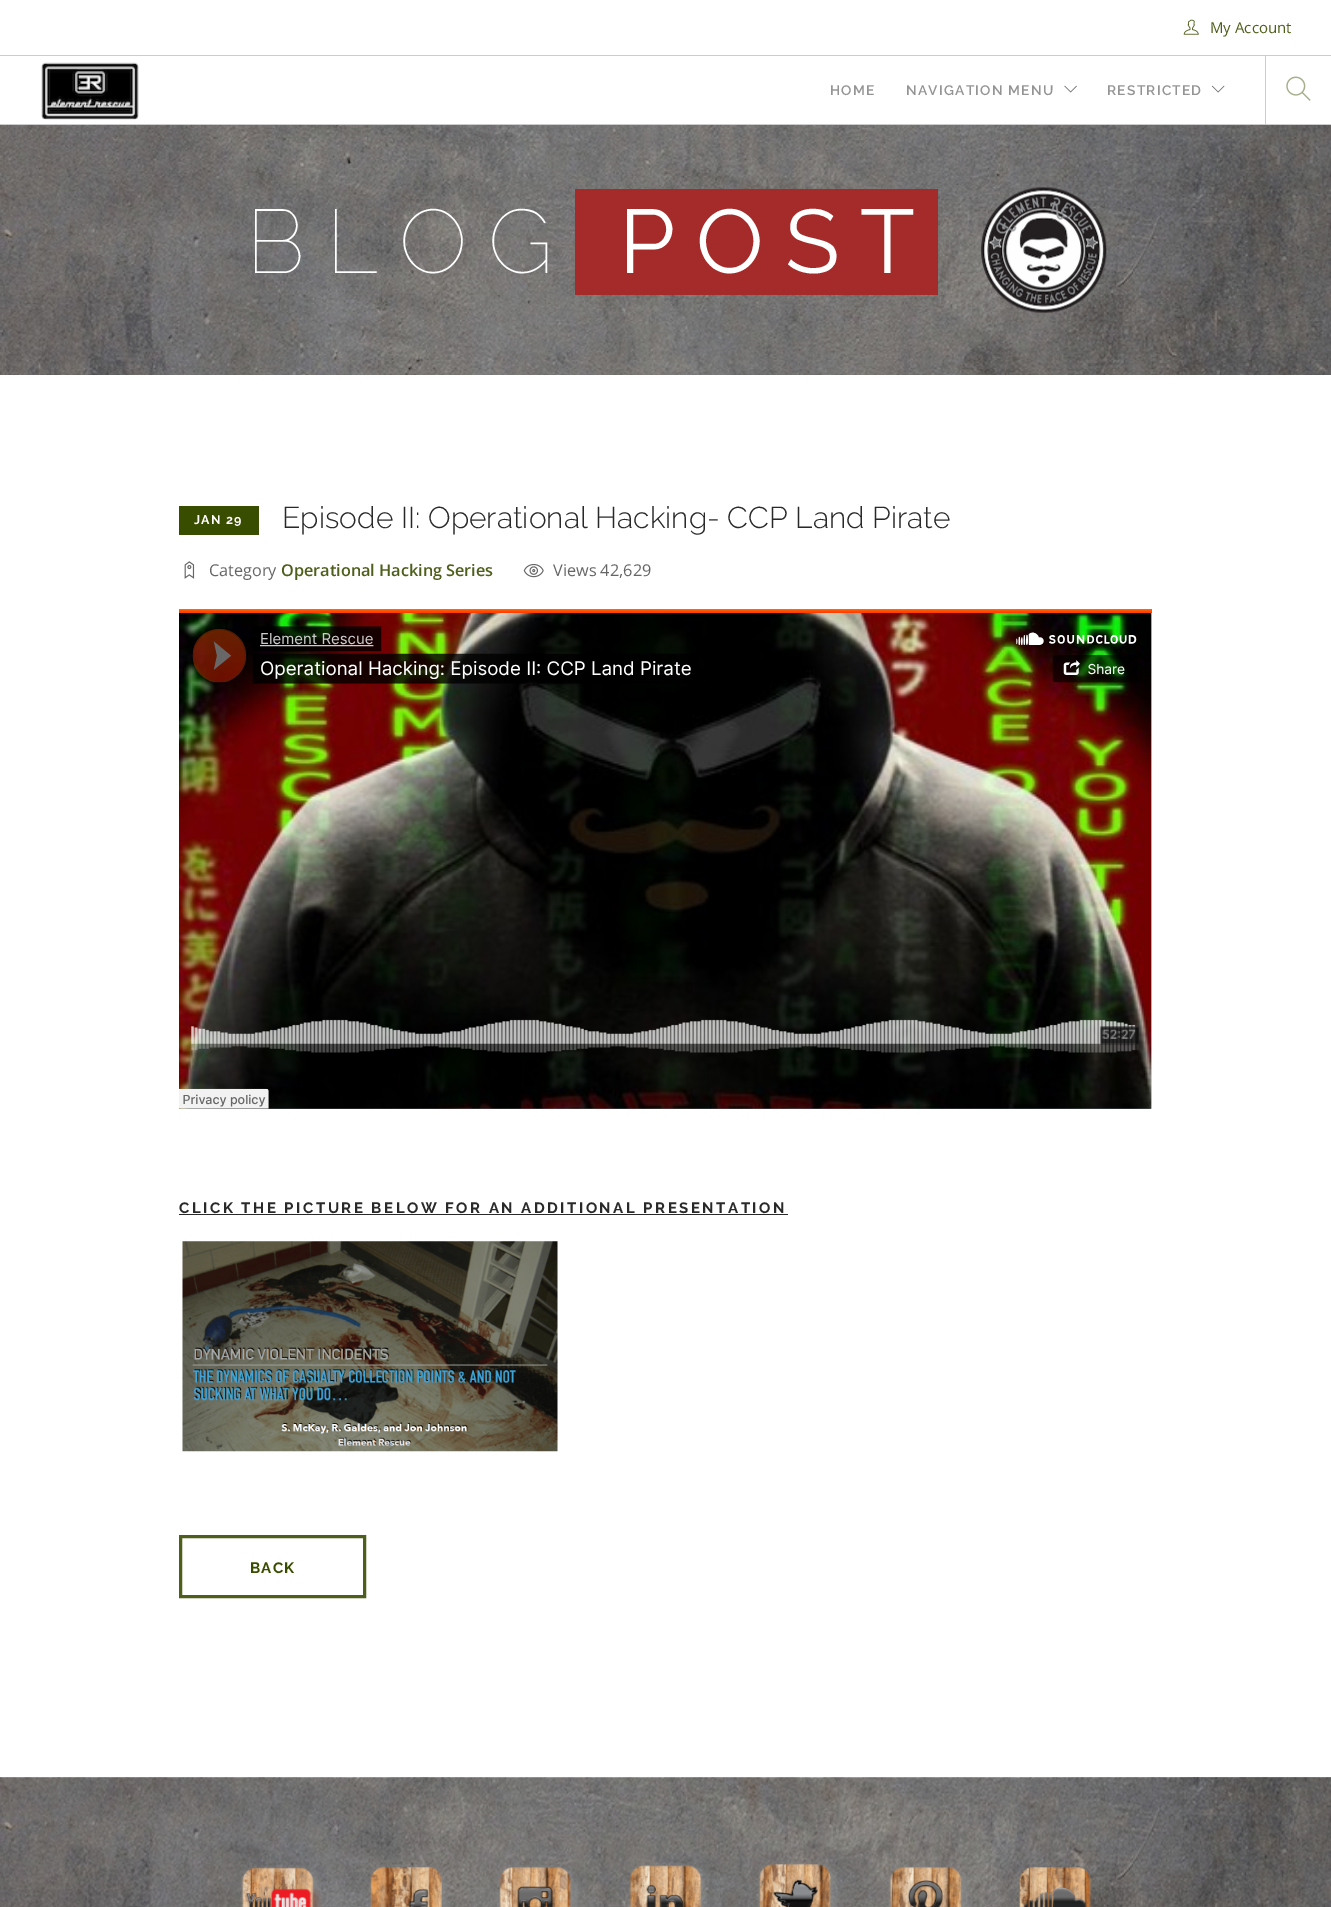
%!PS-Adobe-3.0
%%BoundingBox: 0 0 1331 1907
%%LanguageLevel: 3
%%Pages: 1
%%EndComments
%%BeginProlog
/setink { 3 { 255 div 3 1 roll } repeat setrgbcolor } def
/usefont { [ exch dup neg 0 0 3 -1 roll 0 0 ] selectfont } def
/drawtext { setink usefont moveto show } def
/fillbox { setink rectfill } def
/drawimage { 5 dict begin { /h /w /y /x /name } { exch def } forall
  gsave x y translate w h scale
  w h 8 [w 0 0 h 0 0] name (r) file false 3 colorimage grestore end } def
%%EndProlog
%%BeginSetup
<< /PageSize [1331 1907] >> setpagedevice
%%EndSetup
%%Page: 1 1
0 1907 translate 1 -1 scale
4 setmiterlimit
0 0 1331 1907 255 255 255 fillbox
0 55 1331 1 204 204 204 fillbox
(assets/img1.rgb) 1183 19 16 16 drawimage
(My Account) 1210 33 /OpenSans-Regular 15 77 95 26 drawtext
0 124 1331 1 204 204 204 fillbox
(assets/img2.rgb) 41 62 98 58 drawimage
/Raleway-SemiBold 13.75 usefont
148 148 148 setink
830 95 moveto 1.25 0 (HOME) ashow
906 95 moveto 1.25 0 (NAVIGATION MENU) ashow
(assets/img3.rgb) 1064 85 13 8 drawimage
1107 95 moveto 1.25 0 (RESTRICTED) ashow
(assets/img4.rgb) 1211 85 14 8 drawimage
1265 56 1 69 204 204 204 fillbox
(assets/img5.rgb) 1286 76 25 25 drawimage
(assets/img6.rgb) 0 125 1331 250 drawimage
/Raleway-Thin 90 usefont
255 255 255 setink
246 273 moveto 21 0 (BLOG) ashow
575 189 363 106 165 42 42 fillbox
(assets/img7.rgb) 981 187 126 126 drawimage
/Raleway-Regular 90 usefont
255 255 255 setink
619 273 moveto 21 0 (POST) ashow
179 506 80 29 57 77 0 fillbox
/Raleway-Bold 12.5 usefont
255 255 255 setink
194 524 moveto 1.25 0 (JAN 29) ashow
(Episode II: Operational Hacking- CCP Land Pirate) 282 528 /Raleway-Light 30 41 41 41 drawtext
(assets/img8.rgb) 184 561 11 18 drawimage
(Category) 209 576 /OpenSans-Regular 16.25 102 102 102 drawtext
(Operational Hacking Series) 281 576 /OpenSans-SemiBold 16.25 77 95 26 drawtext
(assets/img9.rgb) 523 563 21 15 drawimage
(Views 42,629) 553 576 /OpenSans-Regular 16.25 102 102 102 drawtext
(assets/img10.rgb) 179 609 973 500 drawimage
/Raleway-Bold 15 usefont
41 41 41 setink
179 1213 moveto 2.5 0 (CLICK THE PICTURE BELOW FOR AN ADDITIONAL PRESENTATION) ashow
179 1214 609 1 41 41 41 fillbox
(assets/img11.rgb) 182 1241 376 211 drawimage
77 95 26 setink
3 setlinewidth
180.5 1536.5 184 60 rectstroke
57 77 0 setink
250 1573 moveto 1.25 0 (BACK) ashow
(assets/img12.rgb) 0 1777 1331 130 drawimage
(assets/img13.rgb) 240 1865 81 42 drawimage
(assets/img14.rgb) 369 1864 81 43 drawimage
(assets/img15.rgb) 497 1865 81 42 drawimage
(assets/img16.rgb) 627 1863 83 44 drawimage
(assets/img17.rgb) 758 1861 80 46 drawimage
(assets/img18.rgb) 888 1864 81 43 drawimage
(assets/img19.rgb) 1019 1867 72 40 drawimage
showpage
%%EOF
